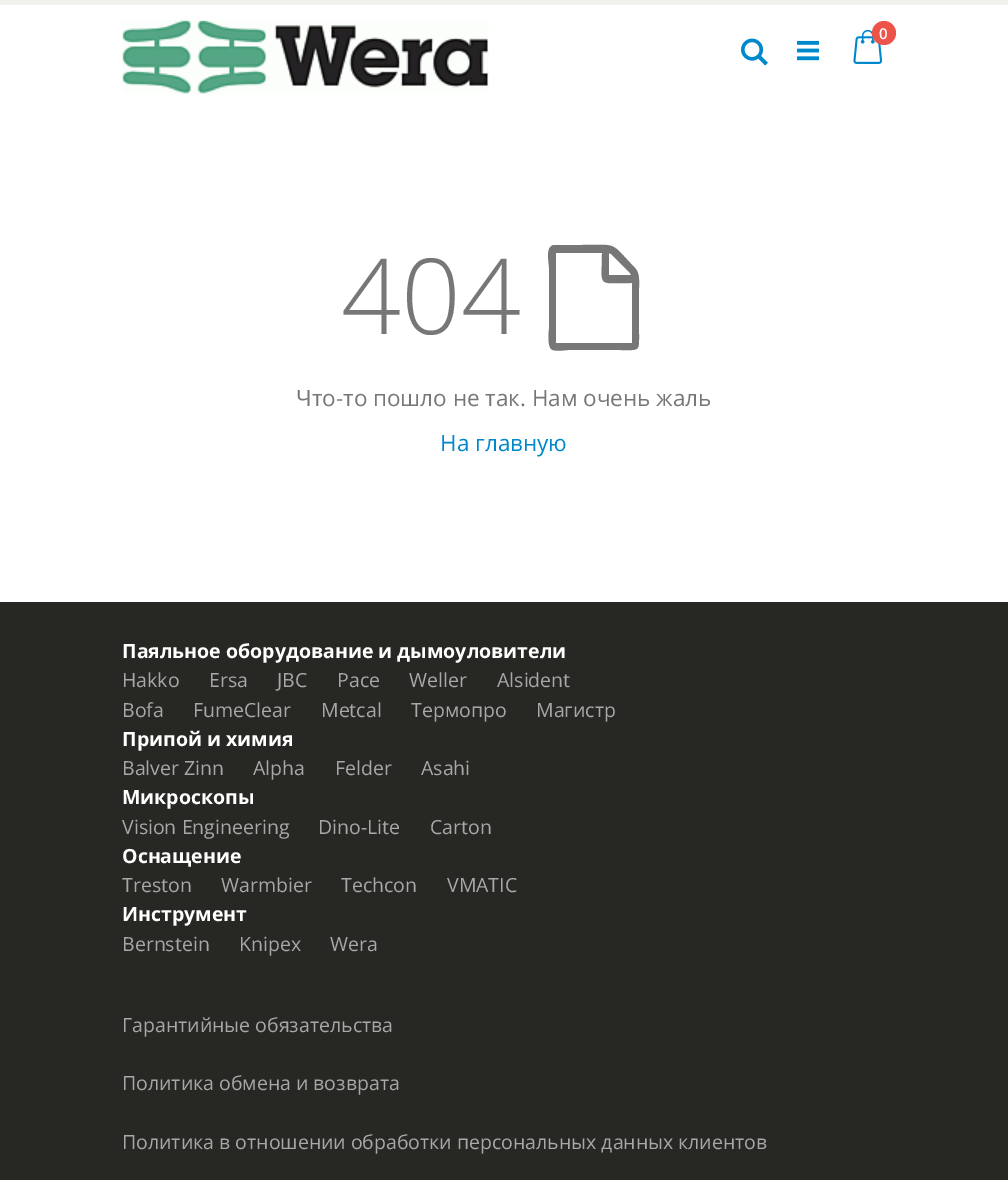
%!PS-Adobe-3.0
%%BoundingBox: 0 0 1008 1180
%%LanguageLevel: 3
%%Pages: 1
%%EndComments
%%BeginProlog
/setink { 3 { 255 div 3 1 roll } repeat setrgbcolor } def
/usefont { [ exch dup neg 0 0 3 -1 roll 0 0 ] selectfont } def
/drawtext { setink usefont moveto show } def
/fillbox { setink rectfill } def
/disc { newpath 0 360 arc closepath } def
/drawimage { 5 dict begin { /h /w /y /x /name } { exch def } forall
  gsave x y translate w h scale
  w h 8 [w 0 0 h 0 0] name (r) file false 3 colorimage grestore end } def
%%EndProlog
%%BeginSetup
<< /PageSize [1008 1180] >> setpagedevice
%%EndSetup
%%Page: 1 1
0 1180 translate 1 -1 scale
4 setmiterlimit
0 0 1008 1180 255 255 255 fillbox
0 0 1008 5 240 240 237 fillbox
(assets/img1.rgb) 122 20 367 74 drawimage
(assets/img2.rgb) 853 29 30 35 drawimage
237 83 72 setink
884 33 12 disc fill
(0) 879 39 /OpenSans-SemiBold 15 255 255 255 drawtext
(assets/img3.rgb) 741 38 27 28 drawimage
(assets/img4.rgb) 797 40 22 21 drawimage
(404) 341 334 /OpenSans-Light 105 119 119 119 drawtext
635 268 moveto 640 273 639 282 639 288 curveto 639 333 lineto 639 352 640 350 620 350 curveto 568 350 lineto 566 350 554 352 551 349 curveto 547 344 549 330 549 329 curveto 549 267 lineto 549 263 545 246 554 245 curveto 581 245 lineto 619 245 609 241 635 268 curveto closepath 609 253 moveto 609 275 lineto 631 275 lineto 630 273 lineto 611 254 lineto closepath 632 343 moveto 632 283 lineto 596 283 602 288 602 253 curveto 556 253 lineto 556 343 lineto closepath fill
(Что-то пошло не так. Нам очень жаль) 296 406 /OpenSans-Regular 22.5 119 119 119 drawtext
(На главную) 440 451 /OpenSans-Regular 22.5 0 136 204 drawtext
0 602 1008 578 39 39 35 fillbox
(Паяльное оборудование и дымоуловители) 122 658 /OpenSans-Bold 19.5 255 255 255 drawtext
(Hakko) 122 687 /OpenSans-Regular 19.5 168 168 168 drawtext
(Ersa) 209 687 /OpenSans-Regular 19.5 168 168 168 drawtext
(JBC) 277 687 /OpenSans-Regular 19.5 168 168 168 drawtext
(Pace) 337 687 /OpenSans-Regular 19.5 168 168 168 drawtext
(Weller) 409 687 /OpenSans-Regular 19.5 168 168 168 drawtext
(Alsident) 497 687 /OpenSans-Regular 19.5 168 168 168 drawtext
(Bofa) 122 717 /OpenSans-Regular 19.5 168 168 168 drawtext
(FumeClear) 193 717 /OpenSans-Regular 19.5 168 168 168 drawtext
(Metcal) 321 717 /OpenSans-Regular 19.5 168 168 168 drawtext
(Термопро) 411 717 /OpenSans-Regular 19.5 168 168 168 drawtext
(Магистр) 536 717 /OpenSans-Regular 19.5 168 168 168 drawtext
(Припой и химия) 122 746 /OpenSans-Bold 19.5 255 255 255 drawtext
(Balver Zinn) 122 775 /OpenSans-Regular 19.5 168 168 168 drawtext
(Alpha) 253 775 /OpenSans-Regular 19.5 168 168 168 drawtext
(Felder) 335 775 /OpenSans-Regular 19.5 168 168 168 drawtext
(Asahi) 421 775 /OpenSans-Regular 19.5 168 168 168 drawtext
(Микроскопы) 122 804 /OpenSans-Bold 19.5 255 255 255 drawtext
(Vision Engineering) 122 834 /OpenSans-Regular 19.5 168 168 168 drawtext
(Dino-Lite) 318 834 /OpenSans-Regular 19.5 168 168 168 drawtext
(Carton) 430 834 /OpenSans-Regular 19.5 168 168 168 drawtext
(Оснащение) 122 863 /OpenSans-Bold 19.5 255 255 255 drawtext
(Treston) 122 892 /OpenSans-Regular 19.5 168 168 168 drawtext
(Warmbier) 221 892 /OpenSans-Regular 19.5 168 168 168 drawtext
(Techcon) 341 892 /OpenSans-Regular 19.5 168 168 168 drawtext
(VMATIC) 447 892 /OpenSans-Regular 19.5 168 168 168 drawtext
(Инструмент) 122 921 /OpenSans-Bold 19.5 255 255 255 drawtext
(Bernstein) 122 951 /OpenSans-Regular 19.5 168 168 168 drawtext
(Knipex) 239 951 /OpenSans-Regular 19.5 168 168 168 drawtext
(Wera) 330 951 /OpenSans-Regular 19.5 168 168 168 drawtext
(Гарантийные обязательства) 122 1032 /OpenSans-Regular 19.5 168 168 168 drawtext
(Политика обмена и возврата) 122 1090 /OpenSans-Regular 19.5 168 168 168 drawtext
(Политика в отношении обработки персональных данных клиентов) 122 1149 /OpenSans-Regular 19.5 168 168 168 drawtext
showpage
%%EOF
